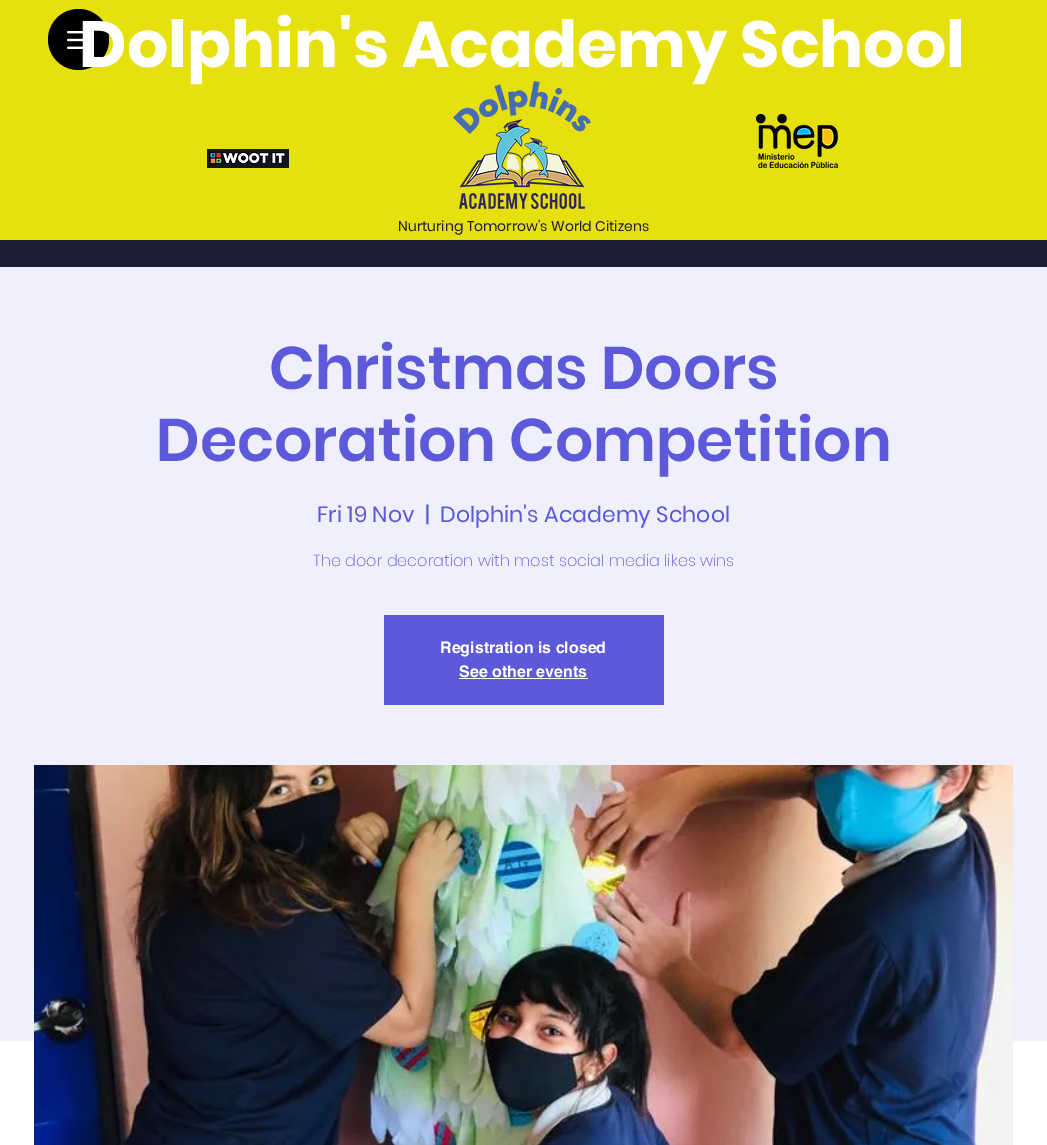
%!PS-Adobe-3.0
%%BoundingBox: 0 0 1047 1145
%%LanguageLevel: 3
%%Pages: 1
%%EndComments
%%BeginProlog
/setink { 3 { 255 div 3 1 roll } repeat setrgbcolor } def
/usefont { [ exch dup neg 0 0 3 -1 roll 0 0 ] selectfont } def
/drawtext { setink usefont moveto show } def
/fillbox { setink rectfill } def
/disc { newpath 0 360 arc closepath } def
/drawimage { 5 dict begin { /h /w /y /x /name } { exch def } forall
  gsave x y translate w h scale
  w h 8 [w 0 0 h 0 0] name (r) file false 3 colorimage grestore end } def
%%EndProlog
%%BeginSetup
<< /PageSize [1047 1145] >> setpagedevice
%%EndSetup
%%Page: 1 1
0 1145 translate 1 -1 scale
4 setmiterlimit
0 0 1047 1145 255 255 255 fillbox
0 0 1047 240 230 224 12 fillbox
0 0 0 setink
78.5 39.5 30.5 disc fill
(assets/img1.rgb) 67 31 24 18 drawimage
(assets/img4.rgb) 453 81 138 128 drawimage
(Dolphin's Academy School) 79 67 /Poppins-Bold 65 255 255 255 drawtext
(assets/img2.rgb) 207 149 82 19 drawimage
(assets/img3.rgb) 756 114 82 54 drawimage
(Nurturing Tomorrow's World Citizens) 398 231 /Poppins-Regular 14 29 29 54 drawtext
0 240 1047 27 29 29 54 fillbox
0 267 1047 774 240 239 252 fillbox
(Christmas Doors) 269 389 /Poppins-SemiBold 60 92 90 219 drawtext
(Decoration Competition) 156 461 /Poppins-SemiBold 60 92 90 219 drawtext
(Fri 19 Nov) 317 522 /Poppins-Regular 22 92 90 219 drawtext
(|) 425 522 /Poppins-Regular 22 92 90 219 drawtext
(Dolphin's Academy School) 440 522 /Poppins-Regular 22 92 90 219 drawtext
(The door decoration with most social media likes wins) 313 566 /Poppins-ExtraLight 16 92 90 219 drawtext
384 615 280 90 92 90 219 fillbox
(Registration is closed) 440 653 /helvetica-Bold 16 255 255 255 drawtext
(See other events) 459 677 /helvetica-Bold 16 255 255 255 drawtext
459 678 129 1 255 255 255 fillbox
(assets/img5.rgb) 34 765 979 380 drawimage
showpage
%%EOF
